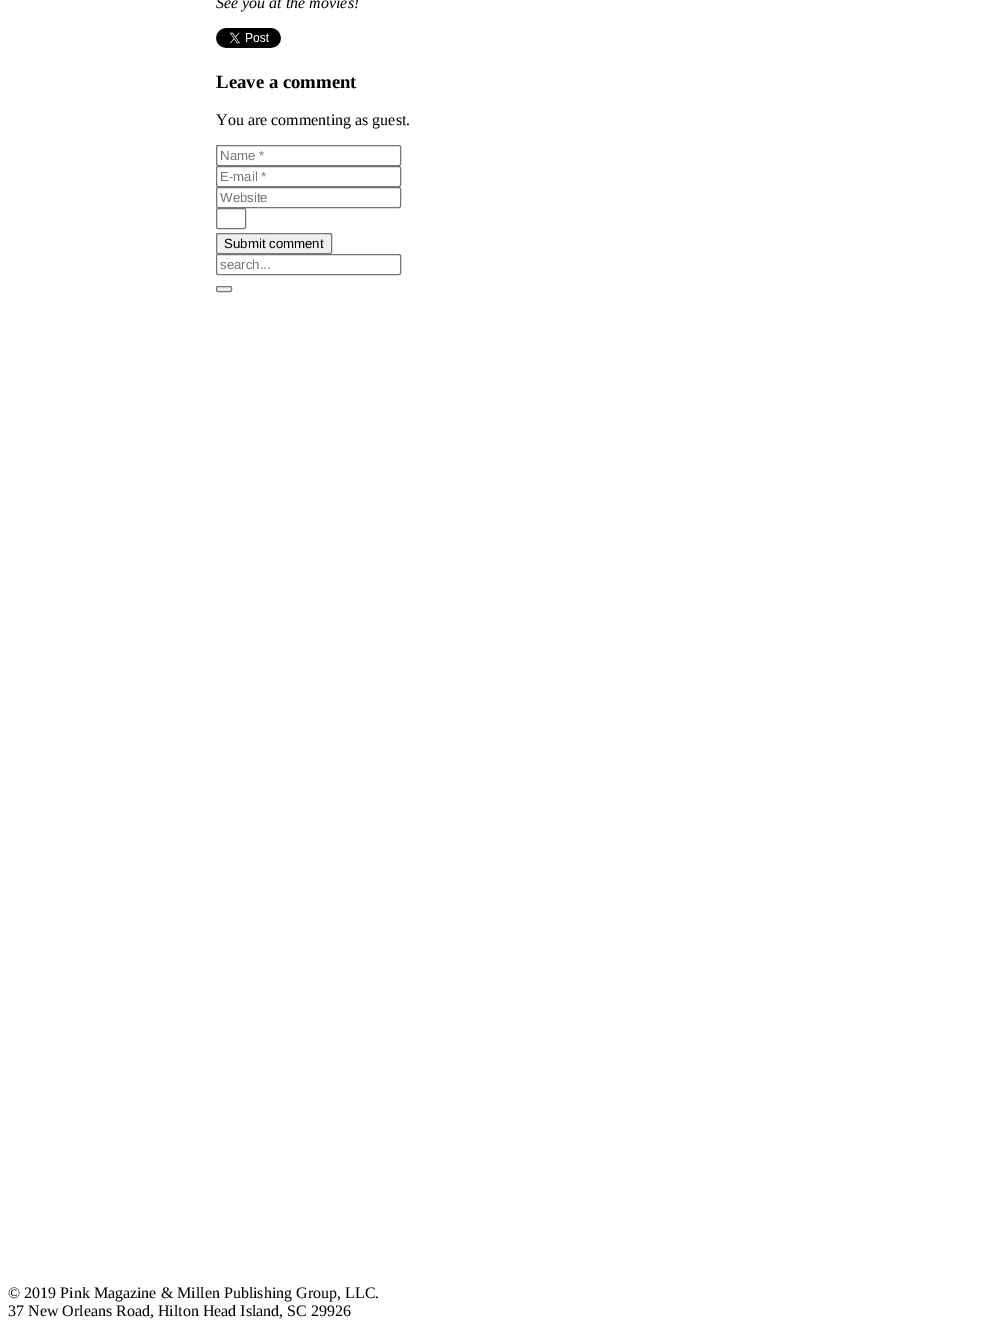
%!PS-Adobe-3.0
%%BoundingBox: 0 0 1006 1336
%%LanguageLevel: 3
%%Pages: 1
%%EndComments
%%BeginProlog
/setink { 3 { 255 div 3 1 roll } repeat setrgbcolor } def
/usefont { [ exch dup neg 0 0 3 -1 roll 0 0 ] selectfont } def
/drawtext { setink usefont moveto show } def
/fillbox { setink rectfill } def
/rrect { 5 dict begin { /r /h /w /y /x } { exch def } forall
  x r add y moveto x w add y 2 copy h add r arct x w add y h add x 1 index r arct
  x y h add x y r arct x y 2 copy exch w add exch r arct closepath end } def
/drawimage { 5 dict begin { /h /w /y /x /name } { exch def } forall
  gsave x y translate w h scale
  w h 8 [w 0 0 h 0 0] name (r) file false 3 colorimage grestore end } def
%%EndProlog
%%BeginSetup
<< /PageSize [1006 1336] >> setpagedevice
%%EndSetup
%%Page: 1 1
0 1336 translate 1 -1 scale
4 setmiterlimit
0 0 1006 1336 255 255 255 fillbox
(See you at the movies!) 216 8 /LiberationSerif-Italic 16 0 0 0 drawtext
(assets/img1.rgb) 216 28 65 20 drawimage
(Leave a comment) 216 88 /LiberationSerif-Bold 18.75 0 0 0 drawtext
(You are commenting as guest.) 216 125 /LiberationSerif-Regular 16 0 0 0 drawtext
118 118 118 setink
216.5 145.5 184 20 1.5 rrect stroke
(Name *) 220 160 /LiberationSans-Regular 13.25 117 117 117 drawtext
118 118 118 setink
216.5 166.5 184 20 1.5 rrect stroke
(E-mail *) 220 181 /LiberationSans-Regular 13.25 117 117 117 drawtext
118 118 118 setink
216.5 187.5 184 20 1.5 rrect stroke
(Website) 220 202 /LiberationSans-Regular 13.25 117 117 117 drawtext
118 118 118 setink
216.5 208.5 29 20 1.5 rrect stroke
239 239 239 setink
216.5 233.5 115 20 1.5 rrect gsave fill grestore
118 118 118 setink
stroke
(Submit comment) 224 248 /LiberationSans-Regular 13.25 0 0 0 drawtext
118 118 118 setink
216.5 254.5 184 20 1.5 rrect stroke
(search...) 220 269 /LiberationSans-Regular 13.25 117 117 117 drawtext
239 239 239 setink
216.5 286.5 15 5 1.5 rrect gsave fill grestore
118 118 118 setink
stroke
(© 2019 Pink Magazine & Millen Publishing Group, LLC.) 8 1298 /LiberationSerif-Regular 16 0 0 0 drawtext
(37 New Orleans Road, Hilton Head Island, SC 29926) 8 1316 /LiberationSerif-Regular 16 0 0 0 drawtext
showpage
%%EOF
